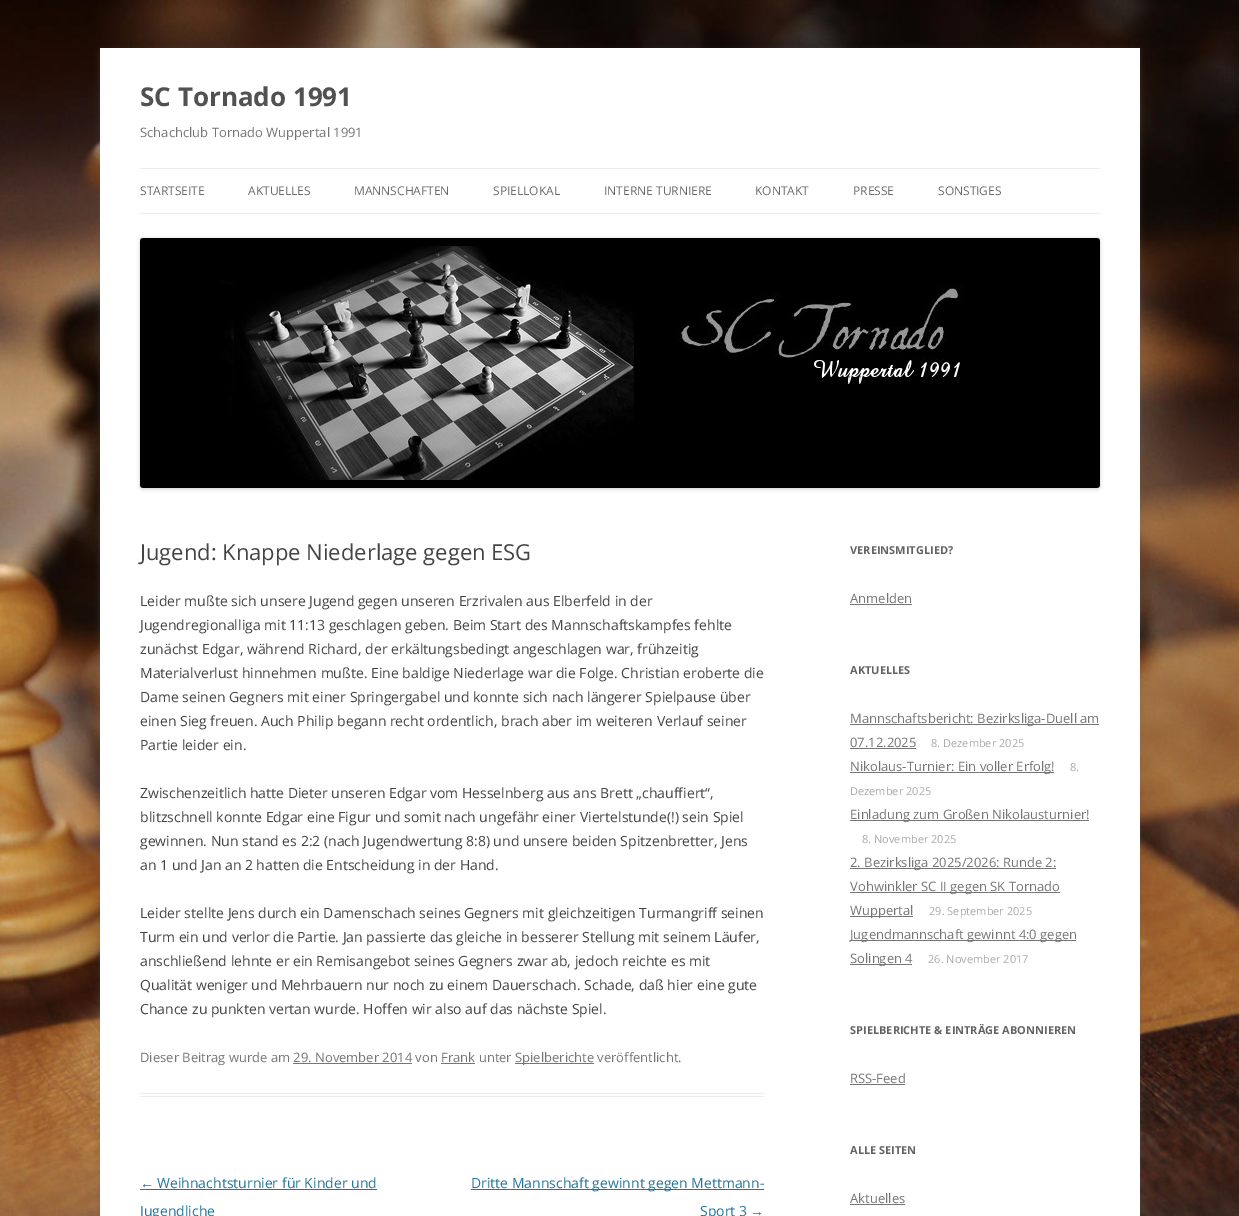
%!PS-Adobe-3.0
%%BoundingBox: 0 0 1239 1216
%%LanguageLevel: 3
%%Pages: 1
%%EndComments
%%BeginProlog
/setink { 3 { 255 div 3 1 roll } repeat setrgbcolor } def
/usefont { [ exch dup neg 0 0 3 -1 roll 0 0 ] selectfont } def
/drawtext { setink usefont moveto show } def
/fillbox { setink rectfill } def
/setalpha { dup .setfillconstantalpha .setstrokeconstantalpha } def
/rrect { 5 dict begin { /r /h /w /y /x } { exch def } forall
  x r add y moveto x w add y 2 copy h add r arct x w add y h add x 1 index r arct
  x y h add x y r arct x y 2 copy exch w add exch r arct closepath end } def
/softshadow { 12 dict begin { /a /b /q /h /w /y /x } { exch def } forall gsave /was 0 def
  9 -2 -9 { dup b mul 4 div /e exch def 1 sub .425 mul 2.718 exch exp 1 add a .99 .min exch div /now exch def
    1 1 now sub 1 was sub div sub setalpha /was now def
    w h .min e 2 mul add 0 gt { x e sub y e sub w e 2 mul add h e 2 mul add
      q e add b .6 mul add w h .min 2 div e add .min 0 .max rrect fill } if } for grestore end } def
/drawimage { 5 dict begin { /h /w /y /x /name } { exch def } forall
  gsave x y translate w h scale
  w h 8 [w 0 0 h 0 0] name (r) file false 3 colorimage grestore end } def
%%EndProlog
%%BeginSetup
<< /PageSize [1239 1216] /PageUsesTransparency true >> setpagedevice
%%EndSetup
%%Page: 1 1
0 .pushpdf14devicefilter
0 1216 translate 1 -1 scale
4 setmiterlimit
0 0 1239 1216 255 255 255 fillbox
(assets/img1.rgb) 0 0 1239 1216 drawimage
100 100 100 setink
100 50 1040 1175 0 3 0.3 softshadow
100 48 1040 1168 255 255 255 fillbox
(SC Tornado 1991) 140 106 /OpenSans-Bold 26 81 81 81 drawtext
(Schachclub Tornado Wuppertal 1991) 140 137 /OpenSans-Regular 13 117 117 117 drawtext
140 168 960 1 237 237 237 fillbox
140 213 960 1 237 237 237 fillbox
(STARTSEITE) 140 195 /OpenSans-Regular 12 106 106 106 drawtext
(AKTUELLES) 248 195 /OpenSans-Regular 12 106 106 106 drawtext
(MANNSCHAFTEN) 354 195 /OpenSans-Regular 12 106 106 106 drawtext
(SPIELLOKAL) 493 195 /OpenSans-Regular 12 106 106 106 drawtext
(INTERNE TURNIERE) 604 195 /OpenSans-Regular 12 106 106 106 drawtext
(KONTAKT) 755 195 /OpenSans-Regular 12 106 106 106 drawtext
(PRESSE) 853 195 /OpenSans-Regular 12 106 106 106 drawtext
(SONSTIGES) 938 195 /OpenSans-Regular 12 106 106 106 drawtext
0 0 0 setink
140 239 960 250 3 2 0.2 softshadow
(assets/img2.rgb) 140 238 960 250 drawimage
140 1093 624 1 237 237 237 fillbox
140 1096 624 1 237 237 237 fillbox
(Jugend: Knappe Niederlage gegen ESG) 140 560 /OpenSans-Regular 22 68 68 68 drawtext
(Leider mußte sich unsere Jugend gegen unseren Erzrivalen aus Elberfeld in der) 140 606 /OpenSans-Regular 14 68 68 68 drawtext
(Jugendregionalliga mit 11:13 geschlagen geben. Beim Start des Mannschaftskampfes fehlte) 140 630 /OpenSans-Regular 14 68 68 68 drawtext
(zunächst Edgar, während Richard, der erkältungsbedingt angeschlagen war, frühzeitig) 140 654 /OpenSans-Regular 14 68 68 68 drawtext
(Materialverlust hinnehmen mußte. Eine baldige Niederlage war die Folge. Christian eroberte die) 140 678 /OpenSans-Regular 14 68 68 68 drawtext
(Dame seinen Gegners mit einer Springergabel und konnte sich nach längerer Spielpause über) 140 702 /OpenSans-Regular 14 68 68 68 drawtext
(einen Sieg freuen. Auch Philip begann recht ordentlich, brach aber im weiteren Verlauf seiner) 140 726 /OpenSans-Regular 14 68 68 68 drawtext
(Partie leider ein.) 140 750 /OpenSans-Regular 14 68 68 68 drawtext
(Zwischenzeitlich hatte Dieter unseren Edgar vom Hesselnberg aus ans Brett „chauffiert“,) 140 798 /OpenSans-Regular 14 68 68 68 drawtext
(blitzschnell konnte Edgar eine Figur und somit nach ungefähr einer Viertelstunde\(!\) sein Spiel) 140 822 /OpenSans-Regular 14 68 68 68 drawtext
(gewinnen. Nun stand es 2:2 \(nach Jugendwertung 8:8\) und unsere beiden Spitzenbretter, Jens) 140 846 /OpenSans-Regular 14 68 68 68 drawtext
(an 1 und Jan an 2 hatten die Entscheidung in der Hand.) 140 870 /OpenSans-Regular 14 68 68 68 drawtext
(Leider stellte Jens durch ein Damenschach seines Gegners mit gleichzeitigen Turmangriff seinen) 140 918 /OpenSans-Regular 14 68 68 68 drawtext
(Turm ein und verlor die Partie. Jan passierte das gleiche in besserer Stellung mit seinem Läufer,) 140 942 /OpenSans-Regular 14 68 68 68 drawtext
(anschließend lehnte er ein Remisangebot seines Gegners zwar ab, jedoch reichte es mit) 140 966 /OpenSans-Regular 14 68 68 68 drawtext
(Qualität weniger und Mehrbauern nur noch zu einem Dauerschach. Schade, daß hier eine gute) 140 990 /OpenSans-Regular 14 68 68 68 drawtext
(Chance zu punkten vertan wurde. Hoffen wir also auf das nächste Spiel.) 140 1014 /OpenSans-Regular 14 68 68 68 drawtext
(Dieser Beitrag wurde am 29. November 2014 von Frank unter) 140 1062 /OpenSans-Regular 13 117 117 117 drawtext
515 1063 79 1 117 117 117 fillbox
(Spielberichte veröffentlicht.) 515 1062 /OpenSans-Regular 13 117 117 117 drawtext
293 1063 119 1 117 117 117 fillbox
441 1063 34 1 117 117 117 fillbox
(←) 140 1188 /LiberationSans-Regular 14 33 117 155 drawtext
140 1189 237 1 33 117 155 fillbox
(Weihnachtsturnier für Kinder und) 157 1188 /OpenSans-Regular 14 33 117 155 drawtext
(Jugendliche) 140 1216 /OpenSans-Regular 14 33 117 155 drawtext
471 1189 293 1 33 117 155 fillbox
(Dritte Mannschaft gewinnt gegen Mettmann-) 471 1188 /OpenSans-Regular 14 33 117 155 drawtext
(Sport 3) 700 1216 /OpenSans-Regular 14 33 117 155 drawtext
(→) 750 1216 /LiberationSans-Regular 14 33 117 155 drawtext
(VEREINSMITGLIED?) 850 554 /OpenSans-Bold 11 99 99 99 drawtext
(Anmelden) 850 603 /OpenSans-Regular 13 117 117 117 drawtext
850 604 62 1 117 117 117 fillbox
(AKTUELLES) 850 674 /OpenSans-Bold 11 99 99 99 drawtext
850 724 249 1 117 117 117 fillbox
(Mannschaftsbericht: Bezirksliga-Duell am) 850 723 /OpenSans-Regular 13 117 117 117 drawtext
(07.12.2025) 850 747 /OpenSans-Regular 13 117 117 117 drawtext
850 748 66 1 117 117 117 fillbox
(8. Dezember 2025) 931 747 /OpenSans-Regular 11 170 170 170 drawtext
850 772 204 1 117 117 117 fillbox
(Nikolaus-Turnier: Ein voller Erfolg!) 850 771 /OpenSans-Regular 13 117 117 117 drawtext
(8.) 1070 771 /OpenSans-Regular 11 170 170 170 drawtext
(Dezember 2025) 850 795 /OpenSans-Regular 11 170 170 170 drawtext
850 820 239 1 117 117 117 fillbox
(Einladung zum Großen Nikolausturnier!) 850 819 /OpenSans-Regular 13 117 117 117 drawtext
(8. November 2025) 862 843 /OpenSans-Regular 11 170 170 170 drawtext
850 868 206 1 117 117 117 fillbox
(2. Bezirksliga 2025/2026: Runde 2:) 850 867 /OpenSans-Regular 13 117 117 117 drawtext
850 892 210 1 117 117 117 fillbox
(Vohwinkler SC II gegen SK Tornado) 850 891 /OpenSans-Regular 13 117 117 117 drawtext
850 916 63 1 117 117 117 fillbox
(Wuppertal) 850 915 /OpenSans-Regular 13 117 117 117 drawtext
(29. September 2025) 929 915 /OpenSans-Regular 11 170 170 170 drawtext
850 940 226 1 117 117 117 fillbox
(Jugendmannschaft gewinnt 4:0 gegen) 850 939 /OpenSans-Regular 13 117 117 117 drawtext
850 964 62 1 117 117 117 fillbox
(Solingen 4) 850 963 /OpenSans-Regular 13 117 117 117 drawtext
(26. November 2017) 928 963 /OpenSans-Regular 11 170 170 170 drawtext
(SPIELBERICHTE & EINTRÄGE ABONNIEREN) 850 1034 /OpenSans-Bold 11 99 99 99 drawtext
(RSS-Feed) 850 1083 /OpenSans-Regular 13 117 117 117 drawtext
850 1084 55 1 117 117 117 fillbox
(ALLE SEITEN) 850 1154 /OpenSans-Bold 11 99 99 99 drawtext
(Aktuelles) 850 1203 /OpenSans-Regular 13 117 117 117 drawtext
850 1204 55 1 117 117 117 fillbox
.poppdf14devicefilter showpage
%%EOF
